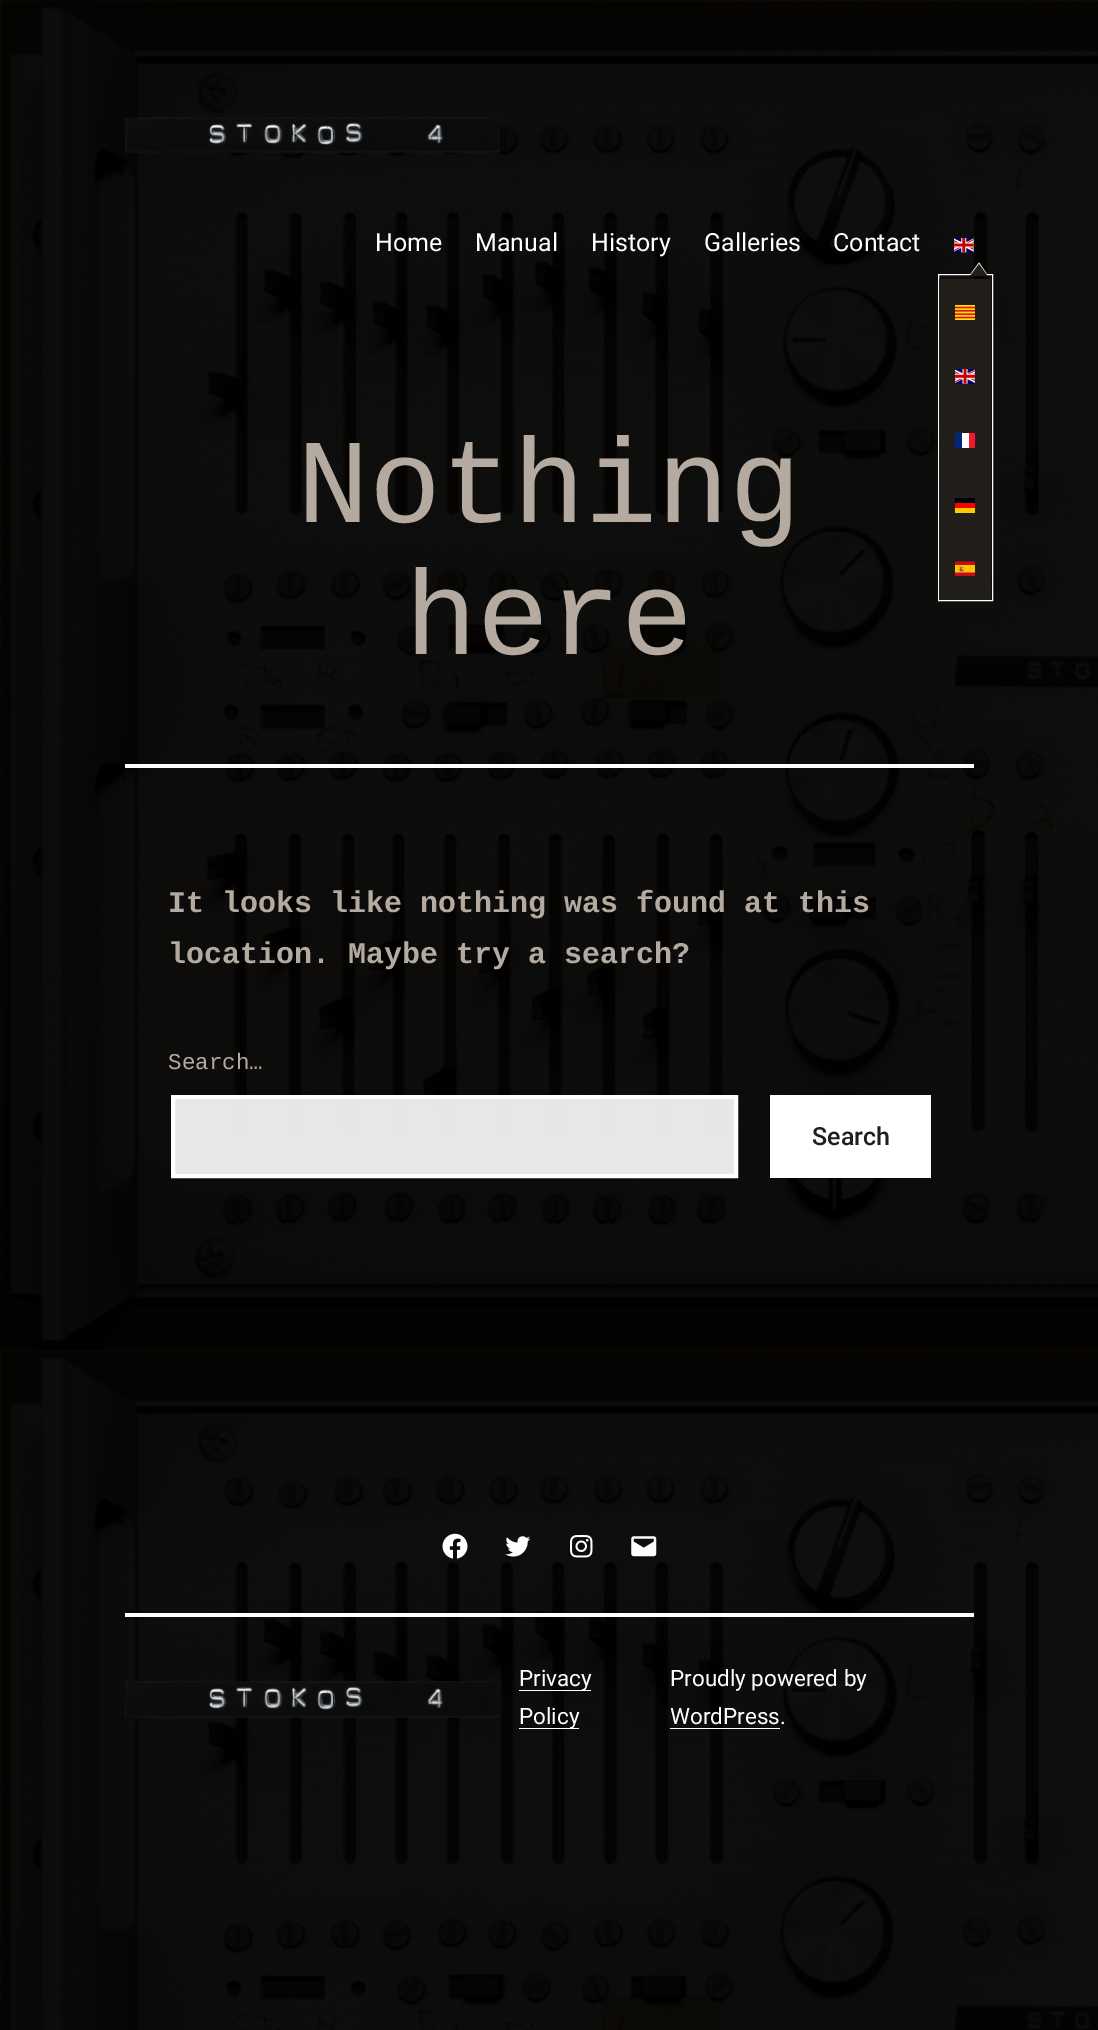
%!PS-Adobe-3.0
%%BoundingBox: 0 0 1098 2030
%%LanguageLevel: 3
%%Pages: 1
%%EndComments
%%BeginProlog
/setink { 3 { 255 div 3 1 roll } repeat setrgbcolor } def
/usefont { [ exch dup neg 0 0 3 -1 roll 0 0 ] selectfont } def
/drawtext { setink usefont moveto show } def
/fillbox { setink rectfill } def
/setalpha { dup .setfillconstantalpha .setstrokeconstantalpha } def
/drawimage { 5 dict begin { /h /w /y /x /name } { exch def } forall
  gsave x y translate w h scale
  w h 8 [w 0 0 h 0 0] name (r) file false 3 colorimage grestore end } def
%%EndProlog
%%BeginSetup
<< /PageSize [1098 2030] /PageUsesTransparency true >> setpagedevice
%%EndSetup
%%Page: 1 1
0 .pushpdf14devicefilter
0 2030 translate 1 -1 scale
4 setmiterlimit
0 0 1098 2030 255 255 255 fillbox
(assets/img1.rgb) 0 0 1098 2030 drawimage
(assets/img2.rgb) 125 117 375 36 drawimage
(Home) 375 251 /Roboto-Regular 25 255 255 255 drawtext
(Manual) 475 251 /Roboto-Regular 25 255 255 255 drawtext
(History) 591 251 /Roboto-Regular 25 255 255 255 drawtext
(Galleries) 704 251 /Roboto-Regular 25 255 255 255 drawtext
(Contact) 833 251 /Roboto-Regular 25 255 255 255 drawtext
(assets/img3.rgb) 954 238 20 15 drawimage
938.5 274.5 54 326 rectstroke
987.5 275 moveto 970 275 lineto 979 262.5 lineto closepath fill
34 30 25 setink
987.5 276 moveto 970 276 lineto 979 264 lineto closepath fill
939 279 52 321 34 30 25 fillbox
(assets/img4.rgb) 955 305 20 15 drawimage
(assets/img5.rgb) 955 369 20 15 drawimage
955 433 7 15 0 38 127 fillbox
962 433 7 15 255 255 255 fillbox
969 433 6 15 243 24 48 fillbox
955 498 20 5 0 0 0 fillbox
955 503 20 5 255 0 0 fillbox
955 508 20 5 255 204 0 fillbox
(assets/img6.rgb) 955 561 20 15 drawimage
125 764 849 4 255 255 255 fillbox
(Nothing) 297 522 /LiberationMono-Regular 120 180 170 160 drawtext
(here) 405 654 /LiberationMono-Regular 120 180 170 160 drawtext
(It looks like nothing was found at this) 168 912 /LiberationMono-Bold 30 180 170 160 drawtext
(location. Maybe try a search?) 168 963 /LiberationMono-Bold 30 180 170 160 drawtext
(Search…) 168 1069 /LiberationMono-Regular 22.5 180 170 160 drawtext
0.9 setalpha
255 255 255 setink
173 1097 moveto 736 1097 lineto 736 1176 lineto 173 1176 lineto closepath fill
1 setalpha
4 setlinewidth
173 1097 moveto 736 1097 lineto 736 1176 lineto 173 1176 lineto closepath stroke
770 1095 161 83 255 255 255 fillbox
(Search) 812 1145 /Roboto-Medium 25 34 30 25 drawtext
(assets/img7.rgb) 442 1533 26 26 drawimage
(assets/img8.rgb) 505 1536 26 21 drawimage
(assets/img9.rgb) 570 1535 23 23 drawimage
(assets/img10.rgb) 631 1536 26 21 drawimage
125 1613 849 4 255 255 255 fillbox
(assets/img11.rgb) 125 1681 375 37 drawimage
519 1690 72 1 255 255 255 fillbox
(Privacy) 519 1686 /Roboto-Regular 22.5 255 255 255 drawtext
519 1728 60 1 255 255 255 fillbox
(Policy) 519 1724 /Roboto-Regular 22.5 255 255 255 drawtext
(Proudly powered by) 670 1686 /Roboto-Regular 22.5 255 255 255 drawtext
(WordPress.) 670 1724 /Roboto-Regular 22.5 255 255 255 drawtext
670 1728 110 1 255 255 255 fillbox
.poppdf14devicefilter showpage
%%EOF
